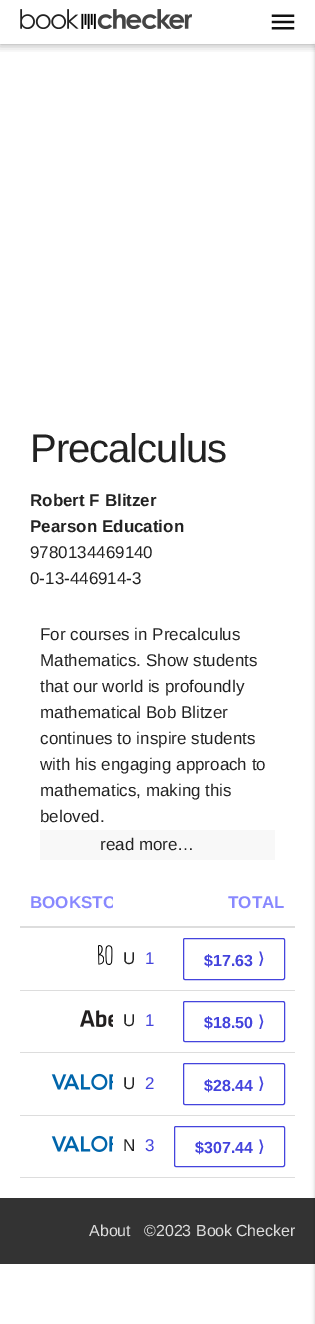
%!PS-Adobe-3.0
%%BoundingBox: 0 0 315 1324
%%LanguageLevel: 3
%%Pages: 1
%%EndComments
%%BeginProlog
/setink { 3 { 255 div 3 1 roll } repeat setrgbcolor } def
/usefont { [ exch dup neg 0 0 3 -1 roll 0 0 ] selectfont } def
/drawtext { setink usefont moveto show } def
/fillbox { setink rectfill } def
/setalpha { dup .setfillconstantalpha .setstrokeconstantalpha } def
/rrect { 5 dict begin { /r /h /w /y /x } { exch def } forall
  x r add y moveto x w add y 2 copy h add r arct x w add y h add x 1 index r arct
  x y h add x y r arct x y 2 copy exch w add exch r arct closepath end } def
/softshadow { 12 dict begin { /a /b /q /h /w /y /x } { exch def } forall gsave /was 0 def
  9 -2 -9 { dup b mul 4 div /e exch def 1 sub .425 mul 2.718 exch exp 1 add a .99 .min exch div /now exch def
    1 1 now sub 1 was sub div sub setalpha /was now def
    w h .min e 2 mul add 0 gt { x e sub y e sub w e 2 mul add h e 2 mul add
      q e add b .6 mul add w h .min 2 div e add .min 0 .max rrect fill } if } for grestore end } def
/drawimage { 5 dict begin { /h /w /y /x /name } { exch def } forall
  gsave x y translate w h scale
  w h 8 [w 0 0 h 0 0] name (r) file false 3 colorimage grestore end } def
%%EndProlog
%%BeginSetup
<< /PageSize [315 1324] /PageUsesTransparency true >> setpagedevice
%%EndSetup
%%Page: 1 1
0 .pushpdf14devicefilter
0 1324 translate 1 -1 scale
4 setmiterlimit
0 0 315 1324 255 255 255 fillbox
gsave
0 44 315 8 rectclip
0 0 0 setink
0 0 315 44 0 5 0.4 softshadow
grestore
(assets/img1.rgb) 20 9 172 20 drawimage
(assets/img2.rgb) 271 14 24 16 drawimage
0 1198 315 66 51 51 51 fillbox
0 0 0 setink
315 45 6 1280 0 2 0.2 softshadow
/LiberationSans-Regular 40 usefont
34 34 34 setink
30 462 moveto -1 0 (Precalculus) ashow
(Robert F Blitzer) 30 506 /LiberationSans-Bold 17 34 34 34 drawtext
(Pearson Education) 30 532 /LiberationSans-Bold 17 34 34 34 drawtext
(9780134469140) 30 558 /LiberationSans-Regular 17 34 34 34 drawtext
(0-13-446914-3) 30 584 /LiberationSans-Regular 17 34 34 34 drawtext
(For courses in Precalculus) 40 640 /LiberationSans-Regular 17 34 34 34 drawtext
(Mathematics. Show students) 40 666 /LiberationSans-Regular 17 34 34 34 drawtext
(that our world is profoundly) 40 692 /LiberationSans-Regular 17 34 34 34 drawtext
(mathematical Bob Blitzer) 40 718 /LiberationSans-Regular 17 34 34 34 drawtext
(continues to inspire students) 40 744 /LiberationSans-Regular 17 34 34 34 drawtext
(with his engaging approach to) 40 770 /LiberationSans-Regular 17 34 34 34 drawtext
(mathematics, making this) 40 796 /LiberationSans-Regular 17 34 34 34 drawtext
(beloved.) 40 822 /LiberationSans-Regular 17 34 34 34 drawtext
40 830 235 30 248 248 248 fillbox
(read more…) 100 850 /LiberationSans-Regular 17 34 34 34 drawtext
gsave
20 880 93 45 rectclip
(BOOKSTO) 30 908 /LiberationSans-Bold 17 136 136 255 drawtext
grestore
20 926 275 2 221 221 221 fillbox
(TOTAL) 228 908 /LiberationSans-Bold 17 136 136 255 drawtext
(assets/img3.rgb) 98 945 15 20 drawimage
(U) 123 964 /LiberationSans-Regular 17 34 34 34 drawtext
(1) 145 964 /LiberationSans-Regular 17 68 68 221 drawtext
20 990 275 1 221 221 221 fillbox
68 68 221 setink
183.5 938.5 101 41 1.5 rrect stroke
($17.63) 204 966 /LiberationSans-Bold 16 68 68 221 drawtext
(⟩) 258 964 /DejaVuSans-Bold 16 68 68 221 drawtext
(assets/img4.rgb) 80 1010 33 17 drawimage
(U) 123 1026 /LiberationSans-Regular 17 34 34 34 drawtext
(1) 145 1026 /LiberationSans-Regular 17 68 68 221 drawtext
20 1052 275 1 221 221 221 fillbox
68 68 221 setink
183.5 1001.5 101 40 1.5 rrect stroke
($18.50) 204 1028 /LiberationSans-Bold 16 68 68 221 drawtext
(⟩) 258 1027 /DejaVuSans-Bold 16 68 68 221 drawtext
(assets/img5.rgb) 51 1073 62 17 drawimage
(U) 123 1089 /LiberationSans-Regular 17 34 34 34 drawtext
(2) 145 1089 /LiberationSans-Regular 17 68 68 221 drawtext
20 1115 275 1 221 221 221 fillbox
68 68 221 setink
183.5 1063.5 101 41 1.5 rrect stroke
($28.44) 204 1091 /LiberationSans-Bold 16 68 68 221 drawtext
(⟩) 258 1089 /DejaVuSans-Bold 16 68 68 221 drawtext
(assets/img5.rgb) 51 1135 62 17 drawimage
(N) 123 1151 /LiberationSans-Regular 17 34 34 34 drawtext
(3) 145 1151 /LiberationSans-Regular 17 68 68 221 drawtext
20 1177 275 1 221 221 221 fillbox
68 68 221 setink
174.5 1126.5 110 40 1.5 rrect stroke
($307.44) 195 1153 /LiberationSans-Bold 16 68 68 221 drawtext
(⟩) 258 1152 /DejaVuSans-Bold 16 68 68 221 drawtext
(About) 89 1236 /LiberationSans-Regular 16 221 221 221 drawtext
(©2023 Book Checker) 144 1236 /LiberationSans-Regular 16 221 221 221 drawtext
.poppdf14devicefilter showpage
%%EOF
